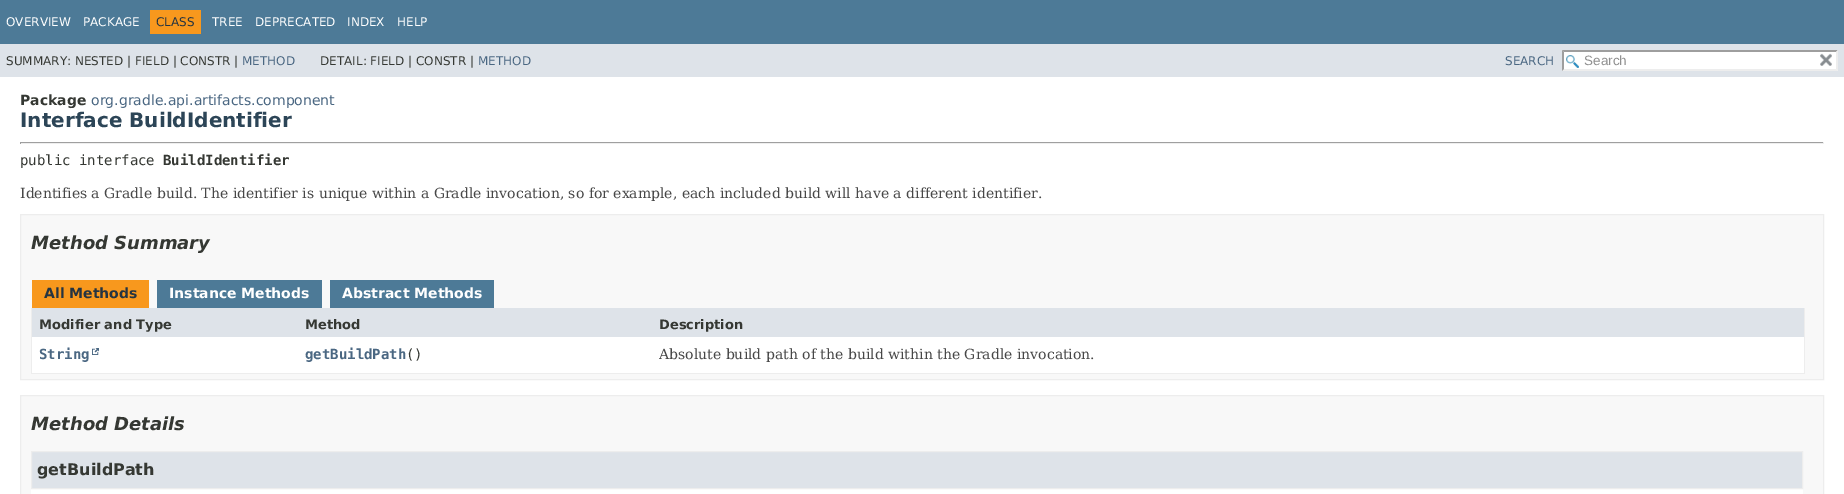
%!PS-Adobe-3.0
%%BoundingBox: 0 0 1844 494
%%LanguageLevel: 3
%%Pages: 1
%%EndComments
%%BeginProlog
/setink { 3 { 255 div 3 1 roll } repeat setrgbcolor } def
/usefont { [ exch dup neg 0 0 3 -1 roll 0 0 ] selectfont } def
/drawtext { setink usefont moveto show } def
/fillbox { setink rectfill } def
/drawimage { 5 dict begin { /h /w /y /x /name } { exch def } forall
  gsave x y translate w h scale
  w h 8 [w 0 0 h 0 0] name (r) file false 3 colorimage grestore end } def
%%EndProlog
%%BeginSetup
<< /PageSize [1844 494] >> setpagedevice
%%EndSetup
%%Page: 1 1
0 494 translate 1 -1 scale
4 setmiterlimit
0 0 1844 494 255 255 255 fillbox
0 0 1844 44 77 122 151 fillbox
(OVERVIEW) 6 26 /DejaVuSans-Regular 12 255 255 255 drawtext
(PACKAGE) 83 26 /DejaVuSans-Regular 12 255 255 255 drawtext
150 10 51 24 248 152 29 fillbox
(CLASS) 156 26 /DejaVuSans-Regular 12 37 52 65 drawtext
(TREE) 212 26 /DejaVuSans-Regular 12 255 255 255 drawtext
(DEPRECATED) 255 26 /DejaVuSans-Regular 12 255 255 255 drawtext
(INDEX) 347 26 /DejaVuSans-Regular 12 255 255 255 drawtext
(HELP) 397 26 /DejaVuSans-Regular 12 255 255 255 drawtext
0 44 1844 33 222 227 233 fillbox
(SUMMARY: NESTED | FIELD | CONSTR |) 6 65 /DejaVuSans-Regular 12 53 56 51 drawtext
(METHOD) 242 65 /DejaVuSans-Regular 12 74 103 130 drawtext
(DETAIL: FIELD | CONSTR |) 320 65 /DejaVuSans-Regular 12 53 56 51 drawtext
(METHOD) 478 65 /DejaVuSans-Regular 12 74 103 130 drawtext
(SEARCH) 1505 65 /DejaVuSans-Regular 12 74 103 130 drawtext
1562 50 276 21 255 255 255 fillbox
(assets/img1.rgb) 1566 55 13 13 drawimage
158 158 158 setink
1562 50 moveto 1838 50 lineto 1836 52 lineto 1564 52 lineto closepath fill
237 237 237 setink
1838 50 moveto 1838 71 lineto 1836 69 lineto 1836 52 lineto closepath fill
1838 71 moveto 1562 71 lineto 1564 69 lineto 1836 69 lineto closepath fill
158 158 158 setink
1562 71 moveto 1562 50 lineto 1564 52 lineto 1564 69 lineto closepath fill
(Search) 1584 65 /LiberationSans-Regular 13.5 144 144 144 drawtext
(assets/img2.rgb) 1820 53 12 13 drawimage
(Package) 20 105 /DejaVuSans-Bold 14 53 56 51 drawtext
(org.gradle.api.artifacts.component) 91 105 /DejaVuSans-Regular 14 74 103 130 drawtext
(Interface BuildIdentifier) 20 127 /DejaVuSans-Bold 20 44 69 87 drawtext
20 142 1804 1 159 159 159 fillbox
1823 142 1 2 238 238 238 fillbox
20 143 1804 1 238 238 238 fillbox
20 142 1 2 159 159 159 fillbox
(public interface) 20 165 /DejaVuSansMono-Regular 14 53 56 51 drawtext
(BuildIdentifier) 163 165 /DejaVuSansMono-Bold 14 53 56 51 drawtext
(Identifies a Gradle build. The identifier is unique within a Gradle invocation, so for example, each included build will have a different identifier.) 20 198 /DejaVuSerif-Regular 14 71 71 71 drawtext
248 248 248 setink
20.5 214.5 moveto 1823.5 214.5 lineto 1823.5 379.5 lineto 20.5 379.5 lineto closepath gsave fill grestore
237 237 237 setink
stroke
(Method Summary) 31 249 /DejaVuSans-BoldItalic 18 53 56 51 drawtext
32 280 117 28 248 152 29 fillbox
(All Methods) 44 298 /DejaVuSans-Bold 14 37 52 65 drawtext
157 280 165 28 77 122 151 fillbox
(Instance Methods) 169 298 /DejaVuSans-Bold 14 255 255 255 drawtext
330 280 164 28 77 122 151 fillbox
(Abstract Methods) 342 298 /DejaVuSans-Bold 14 255 255 255 drawtext
1804 308 1 66 237 237 237 fillbox
31 373 1774 1 237 237 237 fillbox
31 308 1 66 237 237 237 fillbox
32 308 1772 29 222 227 233 fillbox
(Modifier and Type) 39 329 /DejaVuSans-Bold 13 53 56 51 drawtext
(Method) 305 329 /DejaVuSans-Bold 13 53 56 51 drawtext
(Description) 659 329 /DejaVuSans-Bold 13 53 56 51 drawtext
32 337 1772 36 255 255 255 fillbox
(String) 39 359 /DejaVuSansMono-Bold 14 74 103 130 drawtext
(assets/img3.rgb) 92 348 7 7 drawimage
(getBuildPath) 305 359 /DejaVuSansMono-Bold 14 74 103 130 drawtext
(\(\)) 406 359 /DejaVuSansMono-Regular 14 53 56 51 drawtext
(Absolute build path of the build within the Gradle invocation.) 659 359 /DejaVuSerif-Regular 14 71 71 71 drawtext
248 248 248 setink
20.5 395.5 moveto 1823.5 395.5 lineto 1823.5 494.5 lineto 20.5 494.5 lineto closepath gsave fill grestore
237 237 237 setink
stroke
(Method Details) 31 430 /DejaVuSans-BoldItalic 18 53 56 51 drawtext
31 489 1772 5 255 255 255 fillbox
222 227 233 setink
31.5 451.5 moveto 1802.5 451.5 lineto 1802.5 488.5 lineto 31.5 488.5 lineto closepath gsave fill grestore
237 237 237 setink
stroke
(getBuildPath) 37 475 /DejaVuSans-Bold 16 53 56 51 drawtext
showpage
%%EOF
